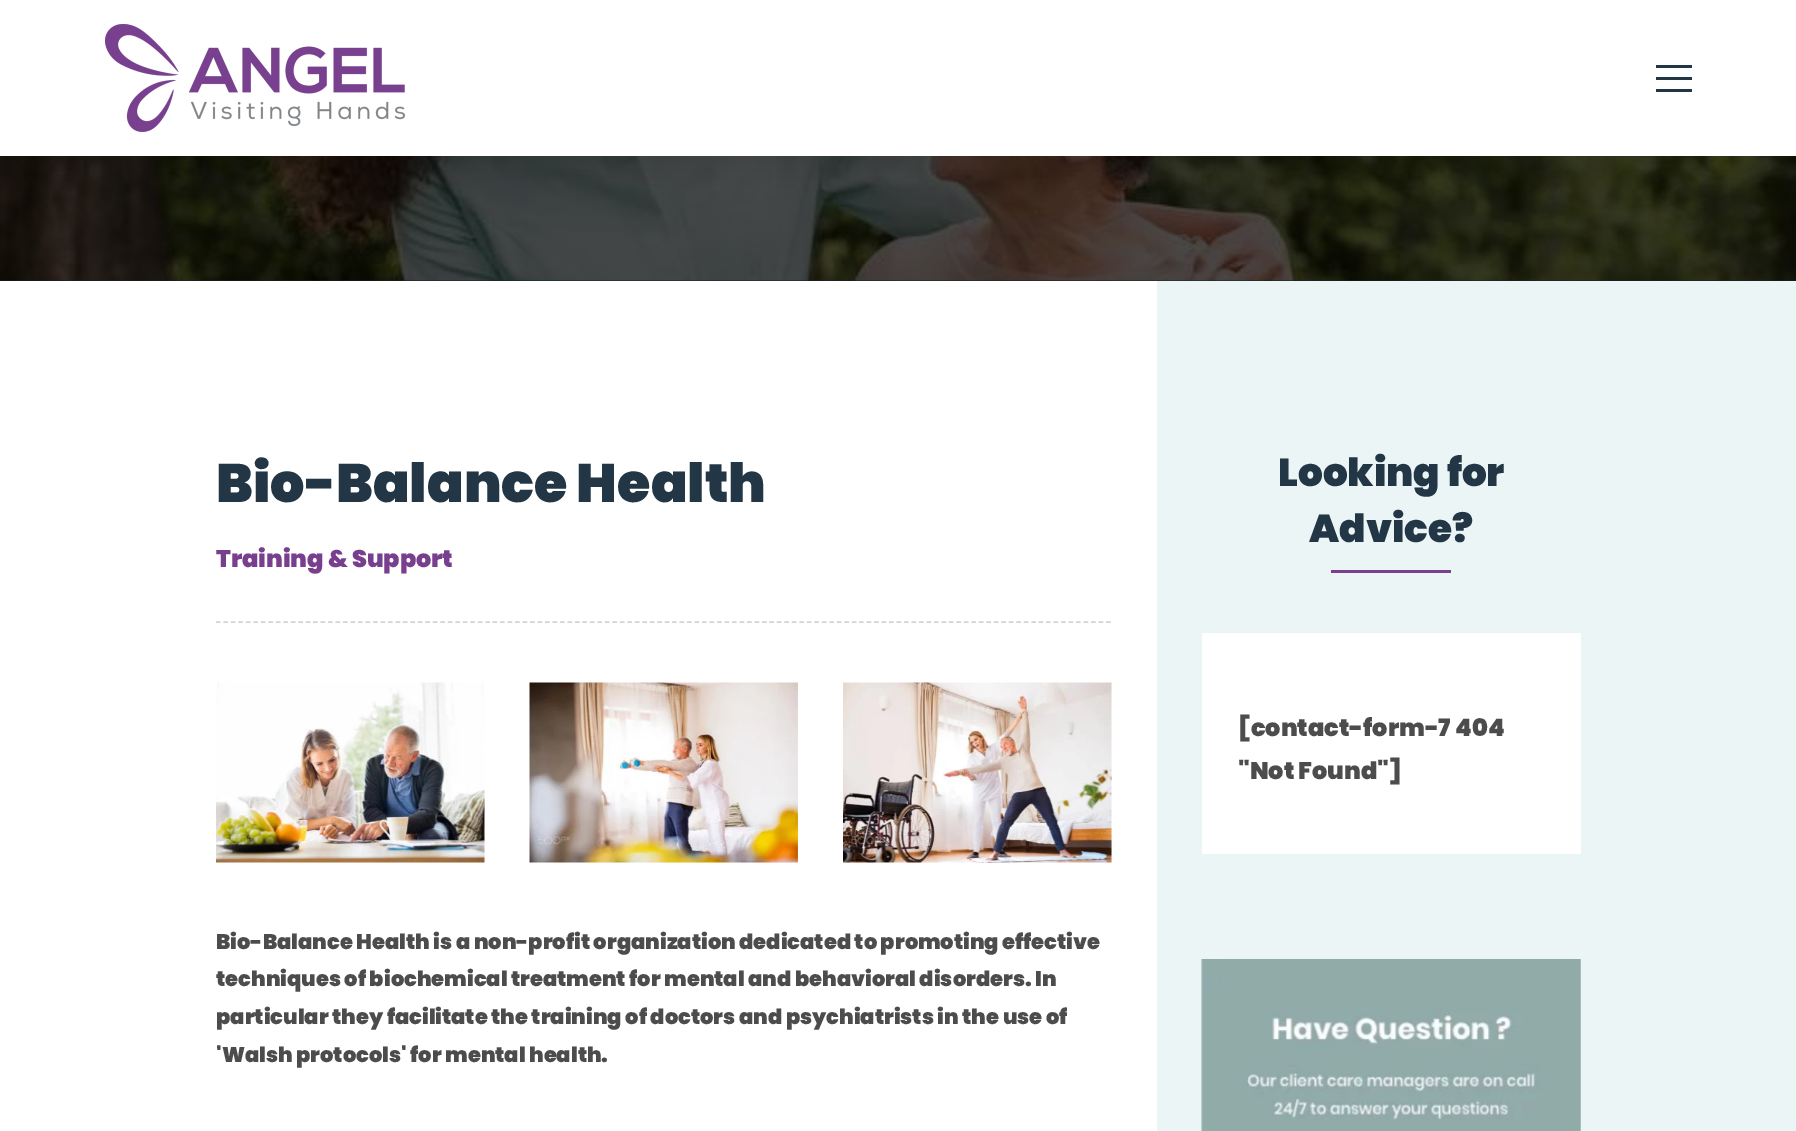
%!PS-Adobe-3.0
%%BoundingBox: 0 0 1796 1131
%%LanguageLevel: 3
%%Pages: 1
%%EndComments
%%BeginProlog
/setink { 3 { 255 div 3 1 roll } repeat setrgbcolor } def
/usefont { [ exch dup neg 0 0 3 -1 roll 0 0 ] selectfont } def
/drawtext { setink usefont moveto show } def
/fillbox { setink rectfill } def
/setalpha { dup .setfillconstantalpha .setstrokeconstantalpha } def
/rrect { 5 dict begin { /r /h /w /y /x } { exch def } forall
  x r add y moveto x w add y 2 copy h add r arct x w add y h add x 1 index r arct
  x y h add x y r arct x y 2 copy exch w add exch r arct closepath end } def
/softshadow { 12 dict begin { /a /b /q /h /w /y /x } { exch def } forall gsave /was 0 def
  9 -2 -9 { dup b mul 4 div /e exch def 1 sub .425 mul 2.718 exch exp 1 add a .99 .min exch div /now exch def
    1 1 now sub 1 was sub div sub setalpha /was now def
    w h .min e 2 mul add 0 gt { x e sub y e sub w e 2 mul add h e 2 mul add
      q e add b .6 mul add w h .min 2 div e add .min 0 .max rrect fill } if } for grestore end } def
/drawimage { 5 dict begin { /h /w /y /x /name } { exch def } forall
  gsave x y translate w h scale
  w h 8 [w 0 0 h 0 0] name (r) file false 3 colorimage grestore end } def
%%EndProlog
%%BeginSetup
<< /PageSize [1796 1131] /PageUsesTransparency true >> setpagedevice
%%EndSetup
%%Page: 1 1
0 .pushpdf14devicefilter
0 1131 translate 1 -1 scale
4 setmiterlimit
0 0 1796 1131 255 255 255 fillbox
0 280 1796 1 17 37 37 fillbox
(assets/img2.rgb) 0 156 1796 125 drawimage
0 0 0 setink
0 12 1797 156 0 15 0.1 softshadow
0 0 1796 156 255 255 255 fillbox
(assets/img1.rgb) 105 24 300 108 drawimage
1656 77 36 3 34 54 69 fillbox
1656 65 36 3 34 54 69 fillbox
1656 89 36 3 34 54 69 fillbox
212 210 210 setink
1.5 setlinewidth
[4.5 2.98] 0 setdash
216 622 moveto 1111.5 622 lineto stroke
(Bio-Balance Health) 216 502 /Poppins-Black 54 34 54 69 drawtext
(Training & Support) 216 567 /Poppins-Black 24 120 63 142 drawtext
(assets/img3.rgb) 216 682 269 181 drawimage
(assets/img4.rgb) 529 682 269 181 drawimage
(assets/img5.rgb) 843 682 269 181 drawimage
(Bio-Balance Health is a non-profit organization dedicated to promoting effective) 216 949 /Poppins-Black 21 76 76 76 drawtext
(techniques of biochemical treatment for mental and behavioral disorders. In) 216 986 /Poppins-Black 21 76 76 76 drawtext
(particular they facilitate the training of doctors and psychiatrists in the use of) 216 1024 /Poppins-Black 21 76 76 76 drawtext
('Walsh protocols' for mental health.) 216 1062 /Poppins-Black 21 76 76 76 drawtext
1157 281 639 850 235 245 245 fillbox
(Looking for) 1278 486 /Poppins-Black 39 34 54 69 drawtext
(Advice?) 1309 542 /Poppins-Black 39 34 54 69 drawtext
1331 570 120 3 120 63 142 fillbox
1202 633 379 221 255 255 255 fillbox
([contact-form-7 404) 1238 736 /Poppins-Black 24 76 76 76 drawtext
("Not Found"]) 1238 779 /Poppins-Black 24 76 76 76 drawtext
(assets/img6.rgb) 1201 959 380 172 drawimage
.poppdf14devicefilter showpage
%%EOF
